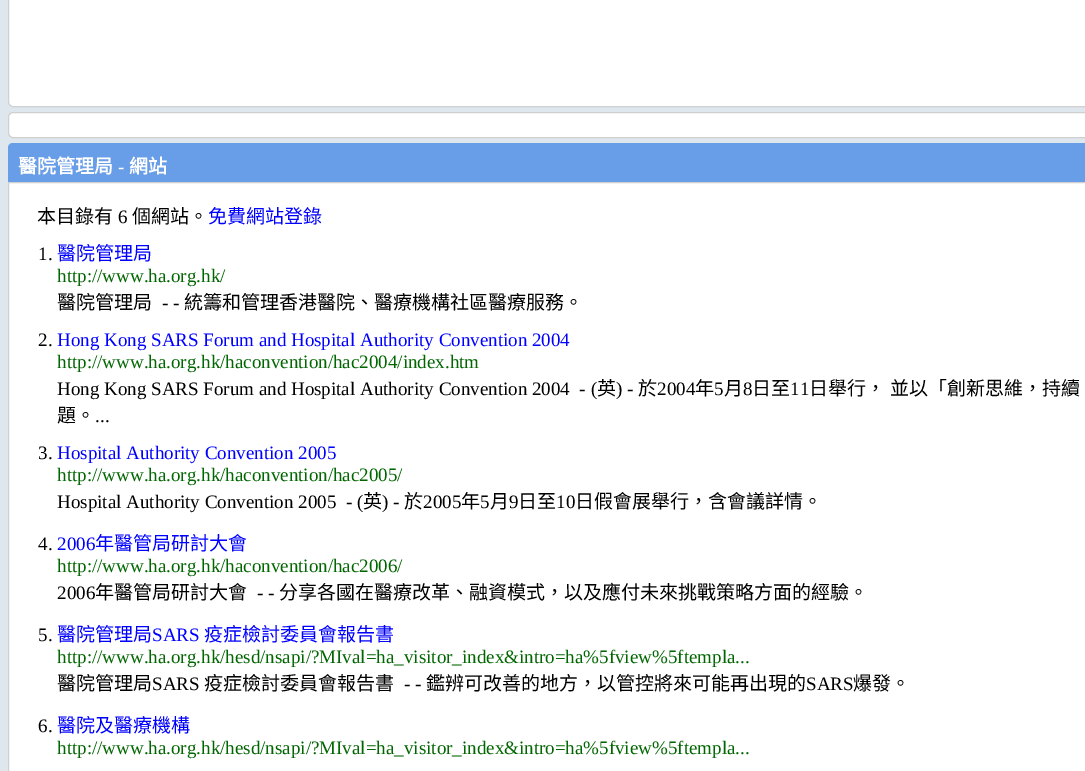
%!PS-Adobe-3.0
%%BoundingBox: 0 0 1085 771
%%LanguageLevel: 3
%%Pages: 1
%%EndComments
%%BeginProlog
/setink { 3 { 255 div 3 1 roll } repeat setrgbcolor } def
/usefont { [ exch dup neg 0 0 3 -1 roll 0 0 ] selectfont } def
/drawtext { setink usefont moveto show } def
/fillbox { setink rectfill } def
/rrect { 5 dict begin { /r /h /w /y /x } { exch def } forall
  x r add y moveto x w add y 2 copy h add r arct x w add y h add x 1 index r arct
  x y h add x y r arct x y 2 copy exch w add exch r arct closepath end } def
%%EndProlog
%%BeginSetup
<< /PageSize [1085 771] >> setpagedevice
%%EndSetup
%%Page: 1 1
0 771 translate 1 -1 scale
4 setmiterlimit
0 0 1085 771 222 231 238 fillbox
255 255 255 setink
8.5 -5.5 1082 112 4.5 rrect gsave fill grestore
208 208 208 setink
stroke
255 255 255 setink
8.5 112.5 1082 25 4.5 rrect gsave fill grestore
208 208 208 setink
stroke
104 157 231 setink
13 143 moveto 1085 143 lineto 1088 143 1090 145 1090 148 curveto 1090 182 lineto 8 182 lineto 8 148 lineto 8 145 10 143 13 143 curveto closepath fill
(醫院管理局) 18 173 /NotoSansCJKHK-Bold 19 255 255 255 drawtext
(-) 118 173 /LiberationSerif-Bold 19 255 255 255 drawtext
(網站) 129 173 /NotoSansCJKHK-Bold 19 255 255 255 drawtext
8.5 182.5 moveto 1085.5 182.5 lineto 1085.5 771.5 lineto 8.5 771.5 lineto closepath gsave fill grestore
208 208 208 setink
stroke
(本目錄有) 37 223 /NotoSansCJKHK-Regular 19 0 0 0 drawtext
(6) 118 223 /LiberationSerif-Regular 19 0 0 0 drawtext
(個網站。) 132 223 /NotoSansCJKHK-Regular 19 0 0 0 drawtext
(免費網站登錄) 208 223 /NotoSansCJKHK-Regular 19 0 0 255 drawtext
(1.) 38 260 /LiberationSerif-Regular 19 0 0 0 drawtext
(醫院管理局) 57 260 /NotoSansCJKHK-Regular 19 0 0 255 drawtext
(http://www.ha.org.hk/) 57 282 /LiberationSerif-Regular 19 0 102 0 drawtext
(醫院管理局) 57 309 /NotoSansCJKHK-Regular 19 0 0 0 drawtext
(- -) 162 309 /LiberationSerif-Regular 19 0 0 0 drawtext
(統籌和管理香港醫院、醫療機構社區醫療服務。) 184 309 /NotoSansCJKHK-Regular 19 0 0 0 drawtext
(2.) 38 346 /LiberationSerif-Regular 19 0 0 0 drawtext
(Hong Kong SARS Forum and Hospital Authority Convention 2004) 57 346 /LiberationSerif-Regular 19 0 0 255 drawtext
(http://www.ha.org.hk/haconvention/hac2004/index.htm) 57 368 /LiberationSerif-Regular 19 0 102 0 drawtext
(Hong Kong SARS Forum and Hospital Authority Convention 2004  - \() 57 395 /LiberationSerif-Regular 19 0 0 0 drawtext
(英) 597 395 /NotoSansCJKHK-Regular 19 0 0 0 drawtext
(\) -) 616 395 /LiberationSerif-Regular 19 0 0 0 drawtext
(於) 638 395 /NotoSansCJKHK-Regular 19 0 0 0 drawtext
(2004) 657 395 /LiberationSerif-Regular 19 0 0 0 drawtext
(年) 695 395 /NotoSansCJKHK-Regular 19 0 0 0 drawtext
(5) 714 395 /LiberationSerif-Regular 19 0 0 0 drawtext
(月) 724 395 /NotoSansCJKHK-Regular 19 0 0 0 drawtext
(8) 743 395 /LiberationSerif-Regular 19 0 0 0 drawtext
(日至) 752 395 /NotoSansCJKHK-Regular 19 0 0 0 drawtext
(11) 790 395 /LiberationSerif-Regular 19 0 0 0 drawtext
(日舉行，) 809 395 /NotoSansCJKHK-Regular 19 0 0 0 drawtext
(並以「創新思維，持續) 890 395 /NotoSansCJKHK-Regular 19 0 0 0 drawtext
(題。) 57 422 /NotoSansCJKHK-Regular 19 0 0 0 drawtext
(...) 95 422 /LiberationSerif-Regular 19 0 0 0 drawtext
(3.) 38 459 /LiberationSerif-Regular 19 0 0 0 drawtext
(Hospital Authority Convention 2005) 57 459 /LiberationSerif-Regular 19 0 0 255 drawtext
(http://www.ha.org.hk/haconvention/hac2005/) 57 481 /LiberationSerif-Regular 19 0 102 0 drawtext
(Hospital Authority Convention 2005  - \() 57 508 /LiberationSerif-Regular 19 0 0 0 drawtext
(英) 363 508 /NotoSansCJKHK-Regular 19 0 0 0 drawtext
(\) -) 382 508 /LiberationSerif-Regular 19 0 0 0 drawtext
(於) 404 508 /NotoSansCJKHK-Regular 19 0 0 0 drawtext
(2005) 423 508 /LiberationSerif-Regular 19 0 0 0 drawtext
(年) 461 508 /NotoSansCJKHK-Regular 19 0 0 0 drawtext
(5) 480 508 /LiberationSerif-Regular 19 0 0 0 drawtext
(月) 490 508 /NotoSansCJKHK-Regular 19 0 0 0 drawtext
(9) 509 508 /LiberationSerif-Regular 19 0 0 0 drawtext
(日至) 518 508 /NotoSansCJKHK-Regular 19 0 0 0 drawtext
(10) 556 508 /LiberationSerif-Regular 19 0 0 0 drawtext
(日假會展舉行，含會議詳情。) 575 508 /NotoSansCJKHK-Regular 19 0 0 0 drawtext
(4.) 38 550 /LiberationSerif-Regular 19 0 0 0 drawtext
(2006) 57 550 /LiberationSerif-Regular 19 0 0 255 drawtext
(年醫管局研討大會) 95 550 /NotoSansCJKHK-Regular 19 0 0 255 drawtext
(http://www.ha.org.hk/haconvention/hac2006/) 57 572 /LiberationSerif-Regular 19 0 102 0 drawtext
(2006) 57 599 /LiberationSerif-Regular 19 0 0 0 drawtext
(年醫管局研討大會) 95 599 /NotoSansCJKHK-Regular 19 0 0 0 drawtext
(- -) 257 599 /LiberationSerif-Regular 19 0 0 0 drawtext
(分享各國在醫療改革、融資模式，以及應付未來挑戰策略方面的經驗。) 279 599 /NotoSansCJKHK-Regular 19 0 0 0 drawtext
(5.) 38 641 /LiberationSerif-Regular 19 0 0 0 drawtext
(醫院管理局) 57 641 /NotoSansCJKHK-Regular 19 0 0 255 drawtext
(SARS) 152 641 /LiberationSerif-Regular 19 0 0 255 drawtext
(疫症檢討委員會報告書) 204 641 /NotoSansCJKHK-Regular 19 0 0 255 drawtext
(http://www.ha.org.hk/hesd/nsapi/?MIval=ha_visitor_index&intro=ha%5fview%5ftempla...) 57 663 /LiberationSerif-Regular 19 0 102 0 drawtext
(醫院管理局) 57 690 /NotoSansCJKHK-Regular 19 0 0 0 drawtext
(SARS) 152 690 /LiberationSerif-Regular 19 0 0 0 drawtext
(疫症檢討委員會報告書) 204 690 /NotoSansCJKHK-Regular 19 0 0 0 drawtext
(- -) 404 690 /LiberationSerif-Regular 19 0 0 0 drawtext
(鑑辨可改善的地方，以管控將來可能再出現的) 426 690 /NotoSansCJKHK-Regular 19 0 0 0 drawtext
(SARS) 806 690 /LiberationSerif-Regular 19 0 0 0 drawtext
(爆發。) 853 690 /NotoSansCJKHK-Regular 19 0 0 0 drawtext
(6.) 38 732 /LiberationSerif-Regular 19 0 0 0 drawtext
(醫院及醫療機構) 57 732 /NotoSansCJKHK-Regular 19 0 0 255 drawtext
(http://www.ha.org.hk/hesd/nsapi/?MIval=ha_visitor_index&intro=ha%5fview%5ftempla...) 57 754 /LiberationSerif-Regular 19 0 102 0 drawtext
showpage
%%EOF
